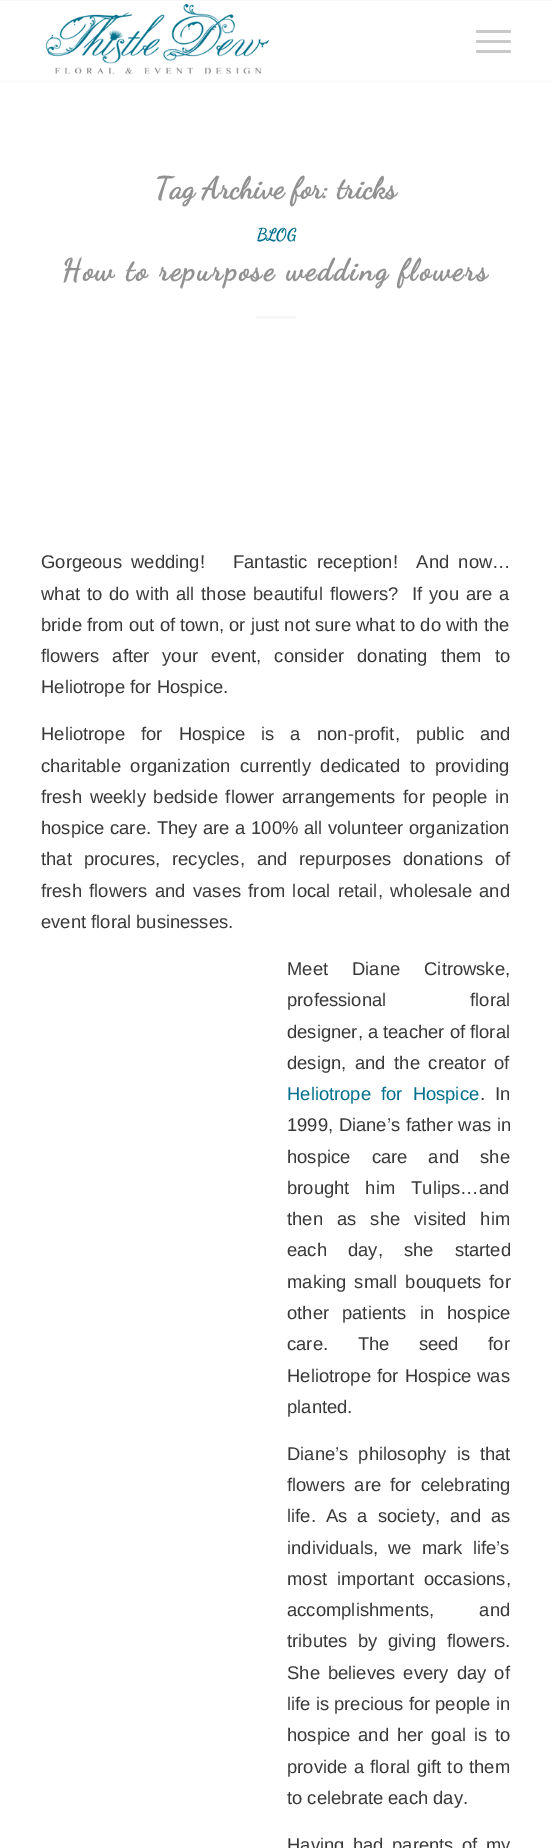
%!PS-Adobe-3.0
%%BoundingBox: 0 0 552 1848
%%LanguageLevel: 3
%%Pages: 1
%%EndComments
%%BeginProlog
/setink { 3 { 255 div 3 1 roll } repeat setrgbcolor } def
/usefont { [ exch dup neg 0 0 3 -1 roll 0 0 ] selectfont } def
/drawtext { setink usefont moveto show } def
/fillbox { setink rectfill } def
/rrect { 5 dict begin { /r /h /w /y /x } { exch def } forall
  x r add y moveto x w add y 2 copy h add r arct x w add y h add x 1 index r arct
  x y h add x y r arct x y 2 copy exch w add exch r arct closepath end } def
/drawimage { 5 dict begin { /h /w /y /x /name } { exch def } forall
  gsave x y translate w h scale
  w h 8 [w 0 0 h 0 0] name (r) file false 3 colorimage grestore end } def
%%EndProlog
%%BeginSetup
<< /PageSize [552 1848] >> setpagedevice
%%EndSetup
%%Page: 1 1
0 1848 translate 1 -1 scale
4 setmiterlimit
0 0 552 1848 255 255 255 fillbox
0 0 552 1 248 248 248 fillbox
0 81 552 1 248 248 248 fillbox
(assets/img1.rgb) 46 4 223 70 drawimage
201 201 201 setink
476 40 35 3 1.5 rrect fill
476 30 35 3 1.5 rrect fill
476 50 35 3 1.5 rrect fill
(Tag Archive for: tricks) 155 198 /DancingScript-Bold 30 145 145 145 drawtext
(BLOG) 257 240 /DancingScript-Bold 16.5 0 112 140 drawtext
/DancingScript-Bold 30 usefont
145 145 145 setink
62 280 moveto 2 0 (How to repurpose wedding flowers) ashow
256 316 40 3 248 248 248 fillbox
/LiberationSans-Regular 18.4 usefont
56 56 56 setink
41 568 moveto 4.25 0 32 (Gorgeous wedding!   Fantastic reception!  And now…) widthshow
41 600 moveto 1.8 0 32 (what to do with all those beautiful flowers?  If you are a) widthshow
(bride from out of town, or just not sure what to do with the) 41 631 /LiberationSans-Regular 18.4 56 56 56 drawtext
41 662 moveto 8 0 32 (flowers after your event, consider donating them to) widthshow
(Heliotrope for Hospice.) 41 693 /LiberationSans-Regular 18.4 56 56 56 drawtext
41 740 moveto 11 0 32 (Heliotrope for Hospice is a non-profit, public and) widthshow
41 772 moveto 4.5 0 32 (charitable organization currently dedicated to providing) widthshow
41 803 moveto 2.5 0 32 (fresh weekly bedside flower arrangements for people in) widthshow
41 834 moveto 0.5 0 32 (hospice care. They are a 100% all volunteer organization) widthshow
41 865 moveto 6.75 0 32 (that procures, recycles, and repurposes donations of) widthshow
41 897 moveto 2.25 0 32 (fresh flowers and vases from local retail, wholesale and) widthshow
(event floral businesses.) 41 928 /LiberationSans-Regular 18.4 56 56 56 drawtext
287 975 moveto 19 0 32 (Meet Diane Citrowske,) widthshow
287 1006 moveto 79 0 32 (professional floral) widthshow
(designer, a teacher of floral) 287 1038 /LiberationSans-Regular 18.4 56 56 56 drawtext
287 1069 moveto 3.5 0 32 (design, and the creator of) widthshow
0 112 140 setink
287 1100 moveto 5 0 32 (Heliotrope for Hospice) widthshow
56 56 56 setink
480 1100 moveto 5 0 32 (. In) widthshow
287 1131 moveto 0.5 0 32 (1999, Diane’s father was in) widthshow
287 1163 moveto 16 0 32 (hospice care and she) widthshow
287 1194 moveto 11 0 32 (brought him Tulips…and) widthshow
287 1225 moveto 9 0 32 (then as she visited him) widthshow
287 1256 moveto 16 0 32 (each day, she started) widthshow
287 1288 moveto 3 0 32 (making small bouquets for) widthshow
287 1319 moveto 8 0 32 (other patients in hospice) widthshow
287 1350 moveto 24.5 0 32 (care. The seed for) widthshow
287 1382 moveto 1 0 32 (Heliotrope for Hospice was) widthshow
(planted.) 287 1413 /LiberationSans-Regular 18.4 56 56 56 drawtext
287 1460 moveto 5 0 32 (Diane’s philosophy is that) widthshow
287 1491 moveto 4 0 32 (flowers are for celebrating) widthshow
287 1522 moveto 5 0 32 (life. As a society, and as) widthshow
287 1554 moveto 5 0 32 (individuals, we mark life’s) widthshow
287 1585 moveto 5 0 32 (most important occasions,) widthshow
287 1616 moveto 40 0 32 (accomplishments, and) widthshow
287 1647 moveto 5.5 0 32 (tributes by giving flowers.) widthshow
287 1679 moveto 3 0 32 (She believes every day of) widthshow
(life is precious for people in) 287 1710 /LiberationSans-Regular 18.4 56 56 56 drawtext
287 1741 moveto 2.75 0 32 (hospice and her goal is to) widthshow
287 1773 moveto 1.25 0 32 (provide a floral gift to them) widthshow
(to celebrate each day.) 287 1804 /LiberationSans-Regular 18.4 56 56 56 drawtext
287 1851 moveto 3.5 0 32 (Having had parents of my) widthshow
showpage
%%EOF
